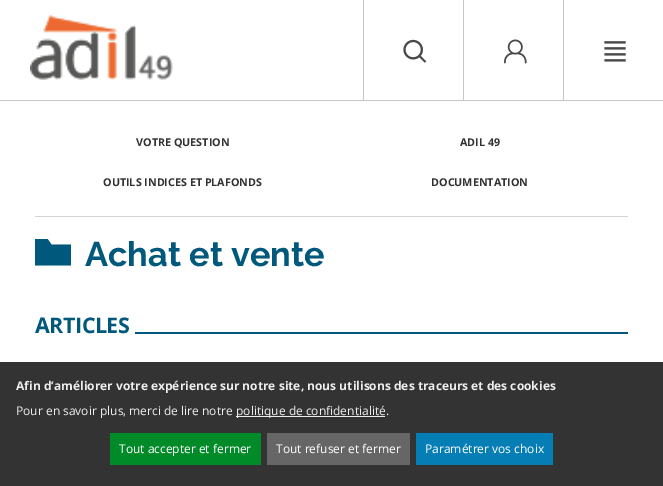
%!PS-Adobe-3.0
%%BoundingBox: 0 0 663 486
%%LanguageLevel: 3
%%Pages: 1
%%EndComments
%%BeginProlog
/setink { 3 { 255 div 3 1 roll } repeat setrgbcolor } def
/usefont { [ exch dup neg 0 0 3 -1 roll 0 0 ] selectfont } def
/drawtext { setink usefont moveto show } def
/fillbox { setink rectfill } def
/drawimage { 5 dict begin { /h /w /y /x /name } { exch def } forall
  gsave x y translate w h scale
  w h 8 [w 0 0 h 0 0] name (r) file false 3 colorimage grestore end } def
%%EndProlog
%%BeginSetup
<< /PageSize [663 486] >> setpagedevice
%%EndSetup
%%Page: 1 1
0 486 translate 1 -1 scale
4 setmiterlimit
0 0 663 486 255 255 255 fillbox
0 100 663 1 198 198 198 fillbox
(assets/img1.rgb) 30 15 143 65 drawimage
363 0 1 100 198 198 198 fillbox
(assets/img2.rgb) 403 39 24 24 drawimage
463 0 1 100 198 198 198 fillbox
(assets/img3.rgb) 504 39 23 25 drawimage
563 0 1 100 198 198 198 fillbox
(assets/img4.rgb) 604 41 22 21 drawimage
35 216 593 1 211 211 211 fillbox
(VOTRE QUESTION) 136 146 /OpenSans-Bold 10.75 50 50 50 drawtext
(ADIL 49) 460 146 /OpenSans-Bold 10.75 50 50 50 drawtext
(OUTILS INDICES ET PLAFONDS) 103 186 /OpenSans-Bold 10.75 50 50 50 drawtext
(DOCUMENTATION) 431 186 /OpenSans-Bold 10.75 50 50 50 drawtext
0 88 124 setink
35 239 moveto 47.5 239 lineto 51.5 244.5 lineto 71 244.5 lineto 71 265.5 lineto 35 265.5 lineto closepath fill
(Achat et vente) 85 266 /Raleway-Thin 34.25 0 88 124 drawtext
/OpenSans-Bold 21.5 usefont
35 333 moveto -0.5 0 (ARTICLES) ashow
135 332 493 2 0 88 124 fillbox
0 362 663 124 51 51 51 fillbox
(Afin d’améliorer votre expérience sur notre site, nous utilisons des traceurs et des cookies) 16 390 /OpenSans-Bold 12 238 238 238 drawtext
(Pour en savoir plus, merci de lire notre) 16 415 /OpenSans-Regular 12 238 238 238 drawtext
236 416 149 1 238 238 238 fillbox
(politique de confidentialité.) 236 415 /OpenSans-Regular 12 238 238 238 drawtext
110 433 151 32 0 138 40 fillbox
(Tout accepter et fermer) 119 453 /OpenSans-Regular 12 255 255 255 drawtext
267 433 143 32 102 102 102 fillbox
(Tout refuser et fermer) 276 453 /OpenSans-Regular 12 255 255 255 drawtext
416 433 137 32 5 126 182 fillbox
(Paramétrer vos choix) 425 453 /OpenSans-Regular 12 255 255 255 drawtext
showpage
%%EOF
